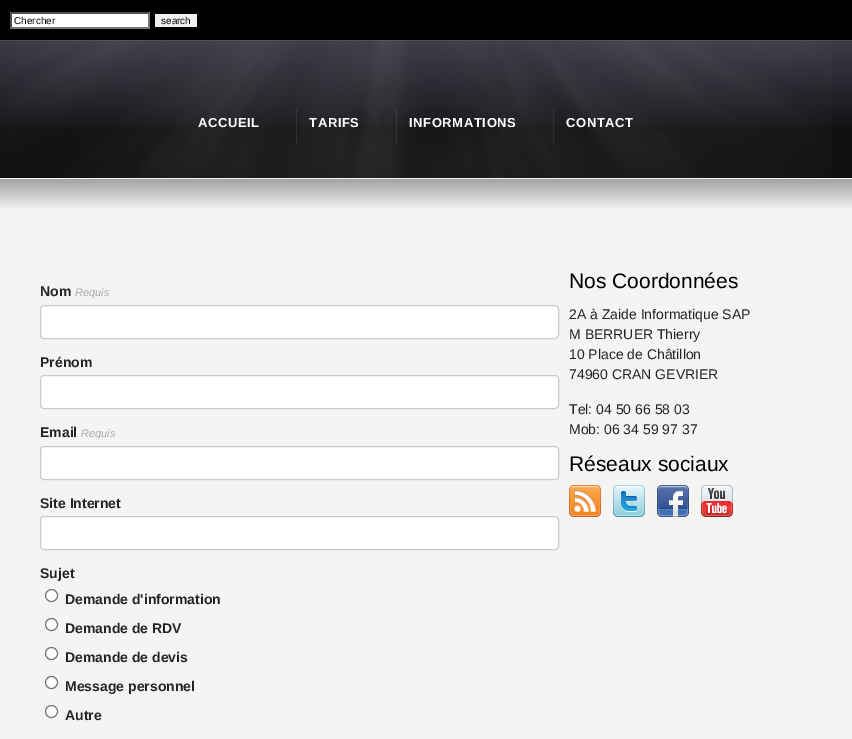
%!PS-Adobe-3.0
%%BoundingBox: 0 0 852 739
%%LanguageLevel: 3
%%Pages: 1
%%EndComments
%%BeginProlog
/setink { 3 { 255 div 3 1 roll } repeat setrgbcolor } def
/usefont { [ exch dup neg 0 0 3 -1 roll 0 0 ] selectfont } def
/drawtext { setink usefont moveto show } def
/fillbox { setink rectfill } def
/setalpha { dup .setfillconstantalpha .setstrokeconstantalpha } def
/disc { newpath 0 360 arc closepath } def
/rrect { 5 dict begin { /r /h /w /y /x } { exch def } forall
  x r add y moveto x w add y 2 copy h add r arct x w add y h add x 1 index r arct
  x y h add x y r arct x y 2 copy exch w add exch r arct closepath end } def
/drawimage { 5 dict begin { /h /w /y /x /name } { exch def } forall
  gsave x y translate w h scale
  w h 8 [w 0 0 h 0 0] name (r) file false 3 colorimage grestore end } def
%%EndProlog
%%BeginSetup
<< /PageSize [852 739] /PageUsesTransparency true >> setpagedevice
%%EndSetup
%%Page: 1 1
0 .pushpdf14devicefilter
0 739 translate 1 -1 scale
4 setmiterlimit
0 0 852 739 244 244 242 fillbox
0 0 852 40 0 0 0 fillbox
10 12 140 17 255 255 255 fillbox
79 79 79 setink
10 12 moveto 150 12 lineto 148 14 lineto 12 14 lineto closepath fill
118 118 118 setink
150 12 moveto 150 29 lineto 148 27 lineto 148 14 lineto closepath fill
150 29 moveto 10 29 lineto 12 27 lineto 148 27 lineto closepath fill
79 79 79 setink
10 29 moveto 10 12 lineto 12 14 lineto 12 27 lineto closepath fill
(Chercher) 14 24 /LiberationSans-Regular 10 0 0 0 drawtext
155 14 42 13 239 239 239 fillbox
(search) 161 24 /LiberationSans-Regular 10 0 0 0 drawtext
0 127 852 51 15 15 16 fillbox
(assets/img1.rgb) 0 40 852 87 drawimage
(assets/img2.rgb) 0 40 832 138 drawimage
/LiberationSans-Bold 13 usefont
255 255 255 setink
198 127 moveto 0.6 0 (ACCUEIL) ashow
0.08 setalpha
296 108 1 37 255 255 255 fillbox
1 setalpha
309 127 moveto 0.6 0 (TARIFS) ashow
0.08 setalpha
396 108 1 37 255 255 255 fillbox
1 setalpha
409 127 moveto 0.6 0 (INFORMATIONS) ashow
0.08 setalpha
553 108 1 37 255 255 255 fillbox
1 setalpha
566 127 moveto 0.6 0 (CONTACT) ashow
(assets/img3.rgb) 0 179 852 30 drawimage
(Nom) 40 296 /LiberationSans-Bold 14 36 36 36 drawtext
(Requis) 75 296 /LiberationSans-Italic 11 170 170 170 drawtext
255 255 255 setink
40.5 305.5 518 33 3.5 rrect gsave fill grestore
201 202 201 setink
stroke
(Prénom) 40 367 /LiberationSans-Bold 14 36 36 36 drawtext
255 255 255 setink
40.5 375.5 518 33 3.5 rrect gsave fill grestore
201 202 201 setink
stroke
(Email) 40 437 /LiberationSans-Bold 14 36 36 36 drawtext
(Requis) 81 437 /LiberationSans-Italic 11 170 170 170 drawtext
255 255 255 setink
40.5 446.5 518 33 3.5 rrect gsave fill grestore
201 202 201 setink
stroke
(Site Internet) 40 508 /LiberationSans-Bold 14 36 36 36 drawtext
255 255 255 setink
40.5 516.5 518 33 3.5 rrect gsave fill grestore
201 202 201 setink
stroke
(Sujet) 40 578 /LiberationSans-Bold 14 36 36 36 drawtext
255 255 255 setink
51.5 595.5 6 disc gsave fill grestore
118 118 118 setink
stroke
(Demande d'information) 65 604 /LiberationSans-Bold 14 36 36 36 drawtext
255 255 255 setink
51.5 624.5 6 disc gsave fill grestore
118 118 118 setink
stroke
(Demande de RDV) 65 633 /LiberationSans-Bold 14 36 36 36 drawtext
255 255 255 setink
51.5 653.5 6 disc gsave fill grestore
118 118 118 setink
stroke
(Demande de devis) 65 662 /LiberationSans-Bold 14 36 36 36 drawtext
255 255 255 setink
51.5 682.5 6 disc gsave fill grestore
118 118 118 setink
stroke
(Message personnel) 65 691 /LiberationSans-Bold 14 36 36 36 drawtext
255 255 255 setink
51.5 711.5 6 disc gsave fill grestore
118 118 118 setink
stroke
(Autre) 65 720 /LiberationSans-Bold 14 36 36 36 drawtext
(Nos Coordonnées) 569 288 /LiberationSans-Regular 21 0 0 0 drawtext
(2A à Zaide Informatique SAP) 569 319 /LiberationSans-Regular 14 36 36 36 drawtext
(M BERRUER Thierry) 569 339 /LiberationSans-Regular 14 36 36 36 drawtext
(10 Place de Châtillon) 569 359 /LiberationSans-Regular 14 36 36 36 drawtext
(74960 CRAN GEVRIER) 569 379 /LiberationSans-Regular 14 36 36 36 drawtext
(Tel: 04 50 66 58 03) 569 414 /LiberationSans-Regular 14 36 36 36 drawtext
(Mob: 06 34 59 97 37) 569 434 /LiberationSans-Regular 14 36 36 36 drawtext
(Réseaux sociaux) 569 471 /LiberationSans-Regular 21 0 0 0 drawtext
(assets/img4.rgb) 569 485 32 32 drawimage
(assets/img5.rgb) 613 485 32 32 drawimage
(assets/img6.rgb) 657 485 32 32 drawimage
(assets/img7.rgb) 701 485 32 32 drawimage
.poppdf14devicefilter showpage
%%EOF
